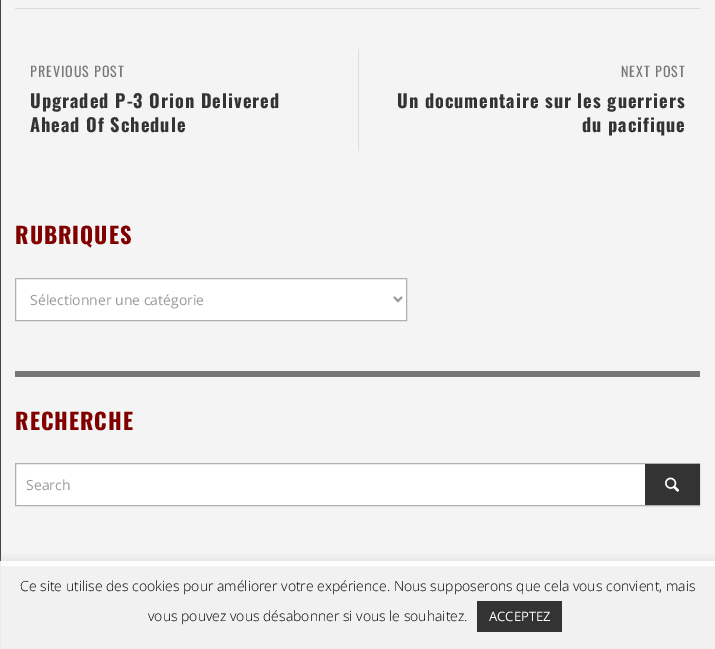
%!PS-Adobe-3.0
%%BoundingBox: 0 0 715 649
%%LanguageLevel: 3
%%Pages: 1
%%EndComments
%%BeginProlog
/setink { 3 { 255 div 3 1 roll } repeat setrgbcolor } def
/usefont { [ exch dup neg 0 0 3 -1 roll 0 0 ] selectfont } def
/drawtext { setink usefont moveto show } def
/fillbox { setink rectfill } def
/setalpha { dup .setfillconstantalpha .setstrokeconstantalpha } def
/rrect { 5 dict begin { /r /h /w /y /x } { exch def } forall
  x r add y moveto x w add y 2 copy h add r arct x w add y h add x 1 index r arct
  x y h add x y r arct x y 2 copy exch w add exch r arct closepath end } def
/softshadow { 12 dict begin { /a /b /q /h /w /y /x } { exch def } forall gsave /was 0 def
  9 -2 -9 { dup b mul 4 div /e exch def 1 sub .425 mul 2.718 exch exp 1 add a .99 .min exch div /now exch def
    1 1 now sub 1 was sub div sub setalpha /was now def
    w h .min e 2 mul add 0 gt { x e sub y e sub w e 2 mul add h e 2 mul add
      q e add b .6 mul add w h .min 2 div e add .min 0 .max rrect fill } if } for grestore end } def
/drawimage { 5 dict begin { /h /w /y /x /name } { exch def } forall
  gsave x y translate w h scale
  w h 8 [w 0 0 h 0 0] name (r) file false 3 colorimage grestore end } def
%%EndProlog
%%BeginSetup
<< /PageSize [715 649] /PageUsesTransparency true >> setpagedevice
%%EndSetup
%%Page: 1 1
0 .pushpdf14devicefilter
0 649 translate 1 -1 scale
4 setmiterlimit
0 0 715 649 241 241 241 fillbox
0 0 1 561 68 68 68 fillbox
0 561 715 5 254 254 254 fillbox
0 561 1 88 236 236 236 fillbox
1 0 714 561 244 244 244 fillbox
15 8 685 1 221 221 221 fillbox
/Oswald-Regular 14 usefont
119 119 119 setink
30 77 moveto 1 0 (PREVIOUS POST) ashow
/Oswald-Bold 18.25 usefont
51 51 51 setink
30 108 moveto 1 0 (Upgraded P-3 Orion Delivered) ashow
30 132 moveto 1 0 (Ahead Of Schedule) ashow
358 49 1 102 221 221 221 fillbox
/Oswald-Regular 14 usefont
119 119 119 setink
621 77 moveto 1 0 (NEXT POST) ashow
/Oswald-Bold 18.25 usefont
51 51 51 setink
397 108 moveto 1 0 (Un documentaire sur les guerriers) ashow
582 132 moveto 1 0 (du pacifique) ashow
/Oswald-Bold 22.5 usefont
128 0 0 setink
15 244 moveto 1 0 (RUBRIQUES) ashow
255 255 255 setink
15.5 278.5 moveto 406.5 278.5 lineto 406.5 320.5 lineto 15.5 320.5 lineto closepath gsave fill grestore
176 176 176 setink
stroke
153 153 153 setink
2 setlinewidth
394 297 moveto 398 301 lineto 402 297 lineto stroke
(Sélectionner une catégorie) 30 305 /OpenSans-Regular 14 153 153 153 drawtext
15 371 685 6 119 119 119 fillbox
/Oswald-Bold 22.5 usefont
128 0 0 setink
15 430 moveto 1 0 (RECHERCHE) ashow
16 464 629 41 255 255 255 fillbox
176 176 176 setink
1 setlinewidth
15.5 463.5 684 42 rectstroke
(Search) 26 490 /OpenSans-Regular 14 153 153 153 drawtext
645 464 55 41 51 51 51 fillbox
(assets/img1.rgb) 665 477 15 15 drawimage
gsave
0 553 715 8 rectclip
172 171 171 setink
0 560 715 88 0 5 0.3 softshadow
grestore
(Ce site utilise des cookies pour améliorer votre expérience. Nous supposerons que cela vous convient, mais) 20 591 /OpenSans-Light 14 0 0 0 drawtext
(vous pouvez vous désabonner si vous le souhaitez.) 148 621 /OpenSans-Light 14 0 0 0 drawtext
477 601 85 31 51 51 51 fillbox
(ACCEPTEZ) 489 621 /OpenSans-Regular 13 255 255 255 drawtext
.poppdf14devicefilter showpage
%%EOF
